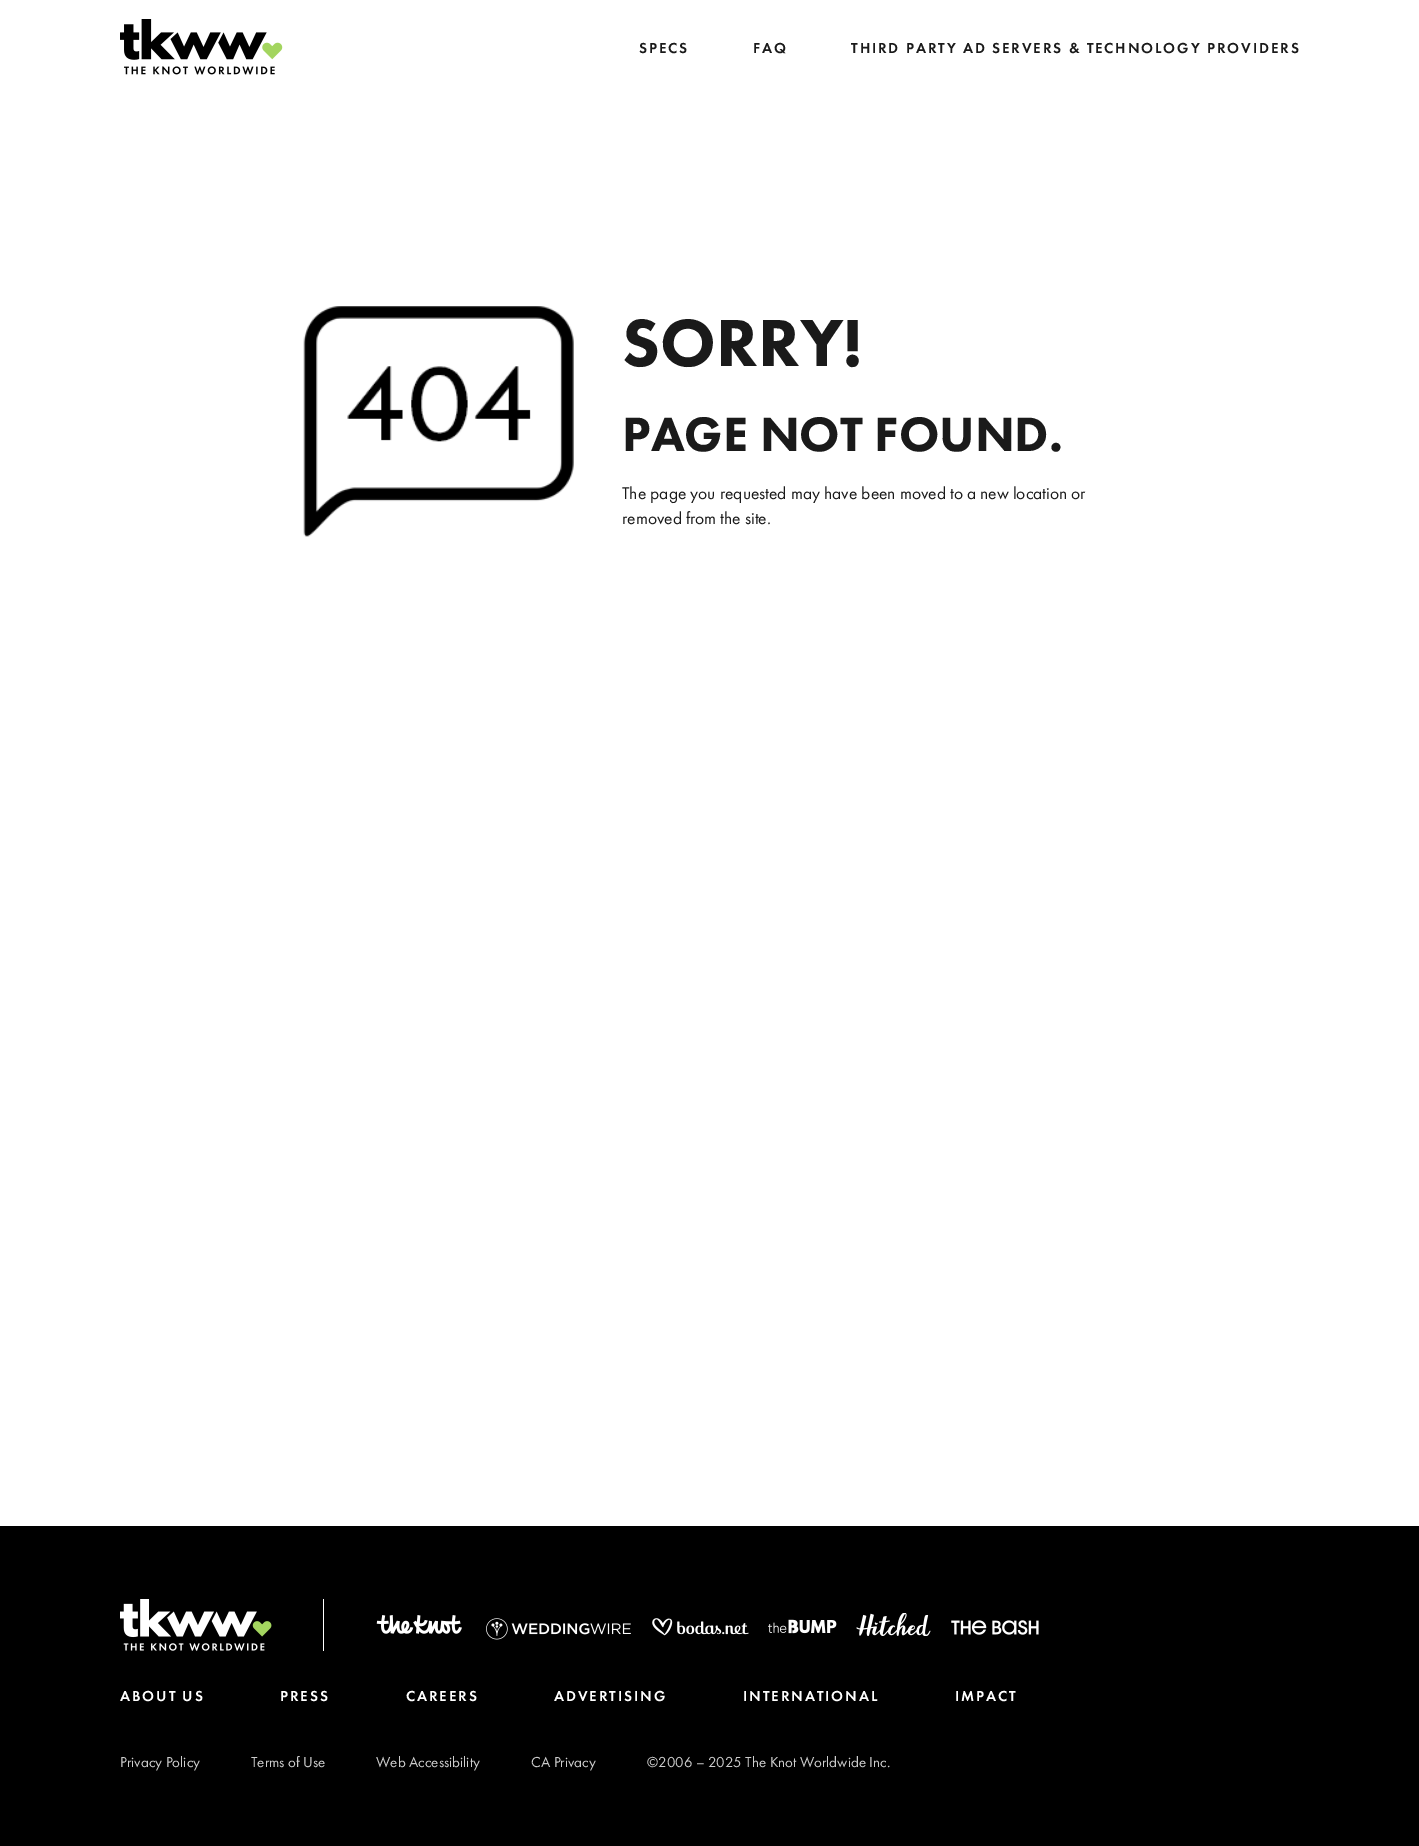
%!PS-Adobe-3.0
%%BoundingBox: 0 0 1419 1846
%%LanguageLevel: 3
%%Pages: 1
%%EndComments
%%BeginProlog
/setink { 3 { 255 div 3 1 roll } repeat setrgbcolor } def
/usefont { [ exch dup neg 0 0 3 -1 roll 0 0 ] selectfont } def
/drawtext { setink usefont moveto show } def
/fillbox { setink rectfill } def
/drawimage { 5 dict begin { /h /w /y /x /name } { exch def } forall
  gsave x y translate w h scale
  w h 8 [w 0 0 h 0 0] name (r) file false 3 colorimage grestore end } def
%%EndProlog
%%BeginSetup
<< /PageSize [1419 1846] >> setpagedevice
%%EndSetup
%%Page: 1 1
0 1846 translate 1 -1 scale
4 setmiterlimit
0 0 1419 1846 255 255 255 fillbox
(assets/img1.rgb) 120 19 163 56 drawimage
/FuturaPT-Medium 15 usefont
26 26 26 setink
639 53 moveto 1.9 0 (SPECS) ashow
753 53 moveto 1.9 0 (FAQ) ashow
851 53 moveto 1.9 0 (THIRD PARTY AD SERVERS & TECHNOLOGY PROVIDERS) ashow
(assets/img2.rgb) 303 306 271 231 drawimage
(SORRY!) 622 366 /FuturaPT-Black 69 26 26 26 drawtext
(PAGE NOT FOUND.) 622 451 /FuturaPT-Black 50 26 26 26 drawtext
(The page you requested may have been moved to a new location or) 622 499 /FuturaPT-Regular 17.5 26 26 26 drawtext
(removed from the site.) 622 524 /FuturaPT-Regular 17.5 26 26 26 drawtext
0 1526 1419 320 0 0 0 fillbox
323 1599 1 52 255 255 255 fillbox
(assets/img3.rgb) 120 1599 152 52 drawimage
(assets/img4.rgb) 376 1615 86 19 drawimage
(assets/img5.rgb) 486 1618 145 22 drawimage
(assets/img6.rgb) 652 1618 97 18 drawimage
(assets/img7.rgb) 768 1619 69 15 drawimage
(assets/img8.rgb) 856 1613 75 23 drawimage
(assets/img9.rgb) 951 1620 88 15 drawimage
/FuturaPT-Medium 15 usefont
120 1701 moveto 1.9 0 (ABOUT US) ashow
280 1701 moveto 1.9 0 (PRESS) ashow
406 1701 moveto 1.9 0 (CAREERS) ashow
554 1701 moveto 1.9 0 (ADVERTISING) ashow
743 1701 moveto 1.9 0 (INTERNATIONAL) ashow
955 1701 moveto 1.9 0 (IMPACT) ashow
(Privacy Policy) 120 1767 /FuturaPT-Regular 15 204 204 204 drawtext
(Terms of Use) 251 1767 /FuturaPT-Regular 15 204 204 204 drawtext
(Web Accessibility) 376 1767 /FuturaPT-Regular 15 204 204 204 drawtext
(CA Privacy) 531 1767 /FuturaPT-Regular 15 204 204 204 drawtext
(©2006 – 2025 The Knot Worldwide Inc.) 647 1767 /FuturaPT-Regular 15 204 204 204 drawtext
showpage
%%EOF
